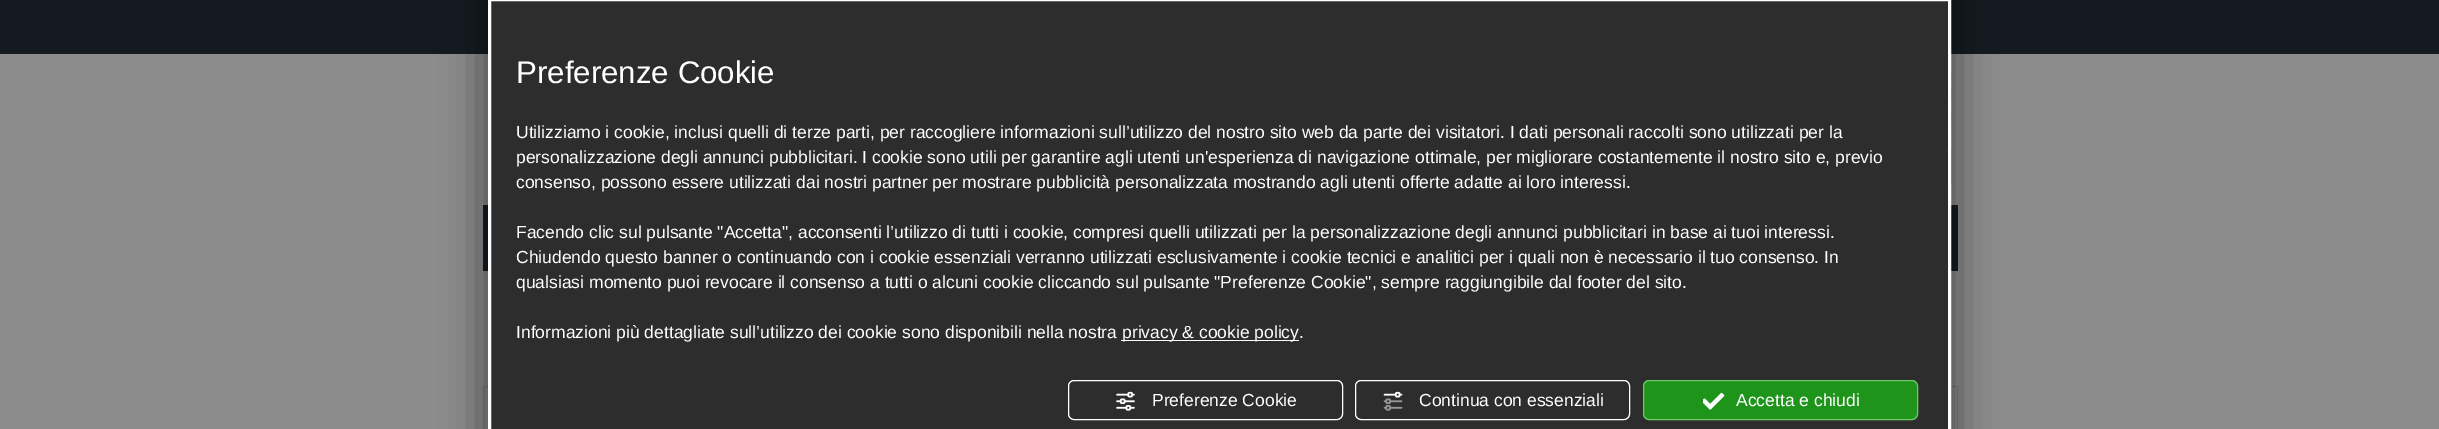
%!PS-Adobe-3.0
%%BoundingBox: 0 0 2439 429
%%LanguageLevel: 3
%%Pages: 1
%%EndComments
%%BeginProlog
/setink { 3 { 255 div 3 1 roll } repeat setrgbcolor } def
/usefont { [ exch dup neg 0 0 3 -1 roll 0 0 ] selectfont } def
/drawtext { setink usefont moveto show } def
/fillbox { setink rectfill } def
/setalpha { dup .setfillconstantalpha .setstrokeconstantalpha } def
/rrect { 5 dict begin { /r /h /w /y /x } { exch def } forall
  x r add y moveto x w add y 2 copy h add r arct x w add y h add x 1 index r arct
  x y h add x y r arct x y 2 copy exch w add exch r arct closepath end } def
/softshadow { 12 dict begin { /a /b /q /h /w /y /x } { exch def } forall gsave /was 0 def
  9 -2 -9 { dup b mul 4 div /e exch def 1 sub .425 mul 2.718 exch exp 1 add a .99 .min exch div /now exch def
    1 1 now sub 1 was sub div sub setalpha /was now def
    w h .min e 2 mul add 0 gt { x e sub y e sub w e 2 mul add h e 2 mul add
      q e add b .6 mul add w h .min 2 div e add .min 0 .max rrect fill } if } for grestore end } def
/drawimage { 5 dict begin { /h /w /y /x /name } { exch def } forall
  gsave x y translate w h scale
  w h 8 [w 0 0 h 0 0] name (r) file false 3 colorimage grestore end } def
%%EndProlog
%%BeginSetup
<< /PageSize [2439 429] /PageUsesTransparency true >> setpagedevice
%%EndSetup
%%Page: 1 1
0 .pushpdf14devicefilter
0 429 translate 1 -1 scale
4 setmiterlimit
0 0 2439 429 140 140 140 fillbox
0 0 2439 54 20 26 32 fillbox
(assets/img1.rgb) 1951 72 1 113 drawimage
483 205 1475 66 20 26 32 fillbox
117 122 124 setink
483.5 386.5 1474 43 rectstroke
0 0 0 setink
479 -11 1481 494 0 18 0.38 softshadow
45 45 45 setink
489.5 -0.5 moveto 1949.5 -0.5 lineto 1949.5 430.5 lineto 489.5 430.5 lineto closepath gsave fill grestore
255 255 255 setink
3 setlinewidth
stroke
(Preferenze Cookie) 516 83 /LiberationSans-Regular 31.25 255 255 255 drawtext
(Utilizziamo i cookie, inclusi quelli di terze parti, per raccogliere informazioni sull’utilizzo del nostro sito web da parte dei visitatori. I dati personali raccolti sono utilizzati per la) 516 138 /LiberationSans-Regular 17.5 255 255 255 drawtext
(personalizzazione degli annunci pubblicitari. I cookie sono utili per garantire agli utenti un'esperienza di navigazione ottimale, per migliorare costantemente il nostro sito e, previo) 516 163 /LiberationSans-Regular 17.5 255 255 255 drawtext
(consenso, possono essere utilizzati dai nostri partner per mostrare pubblicità personalizzata mostrando agli utenti offerte adatte ai loro interessi.) 516 188 /LiberationSans-Regular 17.5 255 255 255 drawtext
(Facendo clic sul pulsante "Accetta", acconsenti l’utilizzo di tutti i cookie, compresi quelli utilizzati per la personalizzazione degli annunci pubblicitari in base ai tuoi interessi.) 516 238 /LiberationSans-Regular 17.5 255 255 255 drawtext
(Chiudendo questo banner o continuando con i cookie essenziali verranno utilizzati esclusivamente i cookie tecnici e analitici per i quali non è necessario il tuo consenso. In) 516 263 /LiberationSans-Regular 17.5 255 255 255 drawtext
(qualsiasi momento puoi revocare il consenso a tutti o alcuni cookie cliccando sul pulsante "Preferenze Cookie", sempre raggiungibile dal footer del sito.) 516 288 /LiberationSans-Regular 17.5 255 255 255 drawtext
(Informazioni più dettagliate sull’utilizzo dei cookie sono disponibili nella nostra) 516 338 /LiberationSans-Regular 17.5 255 255 255 drawtext
1121 340 178 1 255 255 255 fillbox
(privacy & cookie policy.) 1122 338 /LiberationSans-Regular 17.5 255 255 255 drawtext
1 setlinewidth
1068.5 380.5 274 39 5.5 rrect stroke
(assets/img2.rgb) 1116 391 19 20 drawimage
(Preferenze Cookie) 1152 406 /LiberationSans-Regular 17.5 255 255 255 drawtext
1355.5 380.5 274 39 5.5 rrect stroke
(assets/img3.rgb) 1383 391 20 20 drawimage
(Continua con essenziali) 1419 406 /LiberationSans-Regular 17.5 255 255 255 drawtext
30 148 26 setink
1643.5 380.5 274 39 5.5 rrect gsave fill grestore
108 202 105 setink
stroke
(assets/img4.rgb) 1703 392 22 18 drawimage
(Accetta e chiudi) 1736 406 /LiberationSans-Regular 17.5 255 255 255 drawtext
.poppdf14devicefilter showpage
%%EOF
